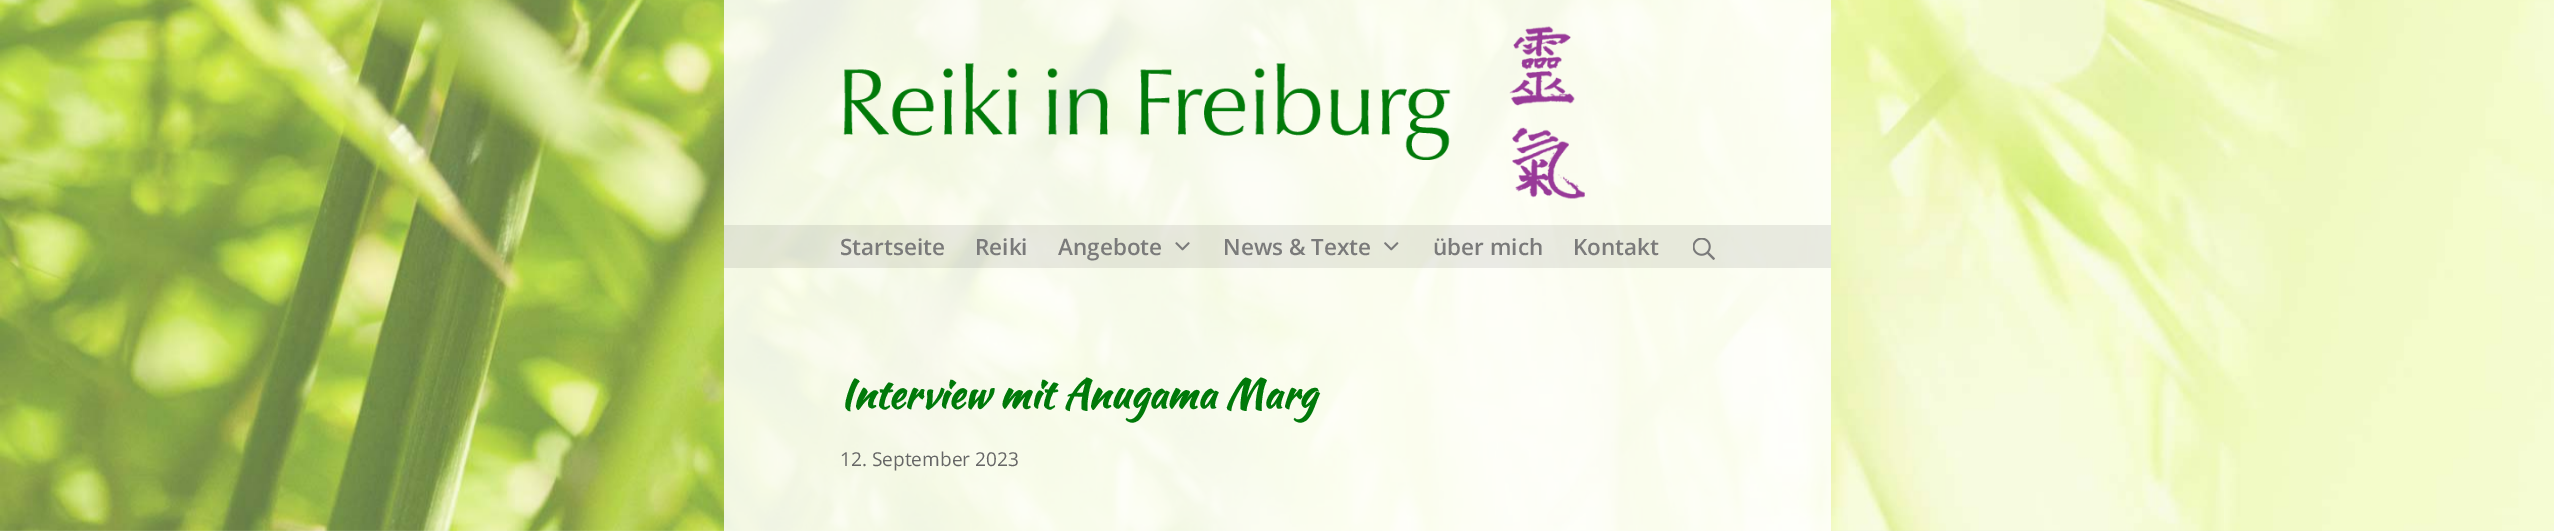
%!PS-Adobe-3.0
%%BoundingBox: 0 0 2554 531
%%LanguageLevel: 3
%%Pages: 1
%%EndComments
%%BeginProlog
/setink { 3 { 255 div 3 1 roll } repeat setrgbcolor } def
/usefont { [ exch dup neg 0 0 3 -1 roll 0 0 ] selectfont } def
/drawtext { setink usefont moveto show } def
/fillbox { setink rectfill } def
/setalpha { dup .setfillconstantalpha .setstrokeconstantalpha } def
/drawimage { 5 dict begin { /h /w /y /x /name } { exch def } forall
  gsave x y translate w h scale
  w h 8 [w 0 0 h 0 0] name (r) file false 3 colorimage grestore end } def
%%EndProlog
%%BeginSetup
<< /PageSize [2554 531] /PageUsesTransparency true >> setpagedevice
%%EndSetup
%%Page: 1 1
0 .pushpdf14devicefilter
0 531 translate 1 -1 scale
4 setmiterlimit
0 0 2554 531 255 255 255 fillbox
(assets/img1.rgb) 0 0 2554 531 drawimage
0.85 setalpha
724 0 1107 531 255 255 255 fillbox
1 setalpha
(assets/img2.rgb) 843 26 742 173 drawimage
0.08 setalpha
724 225 1107 43 2 0 0 fillbox
1 setalpha
(Startseite) 840 255 /OpenSans-SemiBold 22.5 122 122 122 drawtext
(Reiki) 975 255 /OpenSans-SemiBold 22.5 122 122 122 drawtext
(Angebote) 1058 255 /OpenSans-SemiBold 22.5 122 122 122 drawtext
(assets/img3.rgb) 1175 242 15 9 drawimage
(News & Texte) 1223 255 /OpenSans-SemiBold 22.5 122 122 122 drawtext
(assets/img4.rgb) 1384 242 15 9 drawimage
(über mich) 1433 255 /OpenSans-SemiBold 22.5 122 122 122 drawtext
(Kontakt) 1573 255 /OpenSans-SemiBold 22.5 122 122 122 drawtext
(assets/img5.rgb) 1693 238 22 22 drawimage
(Interview mit Anugama Marg) 840 408 /KaushanScript-Bold 40 0 121 9 drawtext
(12. September 2023) 840 466 /OpenSans-Regular 19.1 102 102 102 drawtext
.poppdf14devicefilter showpage
%%EOF
